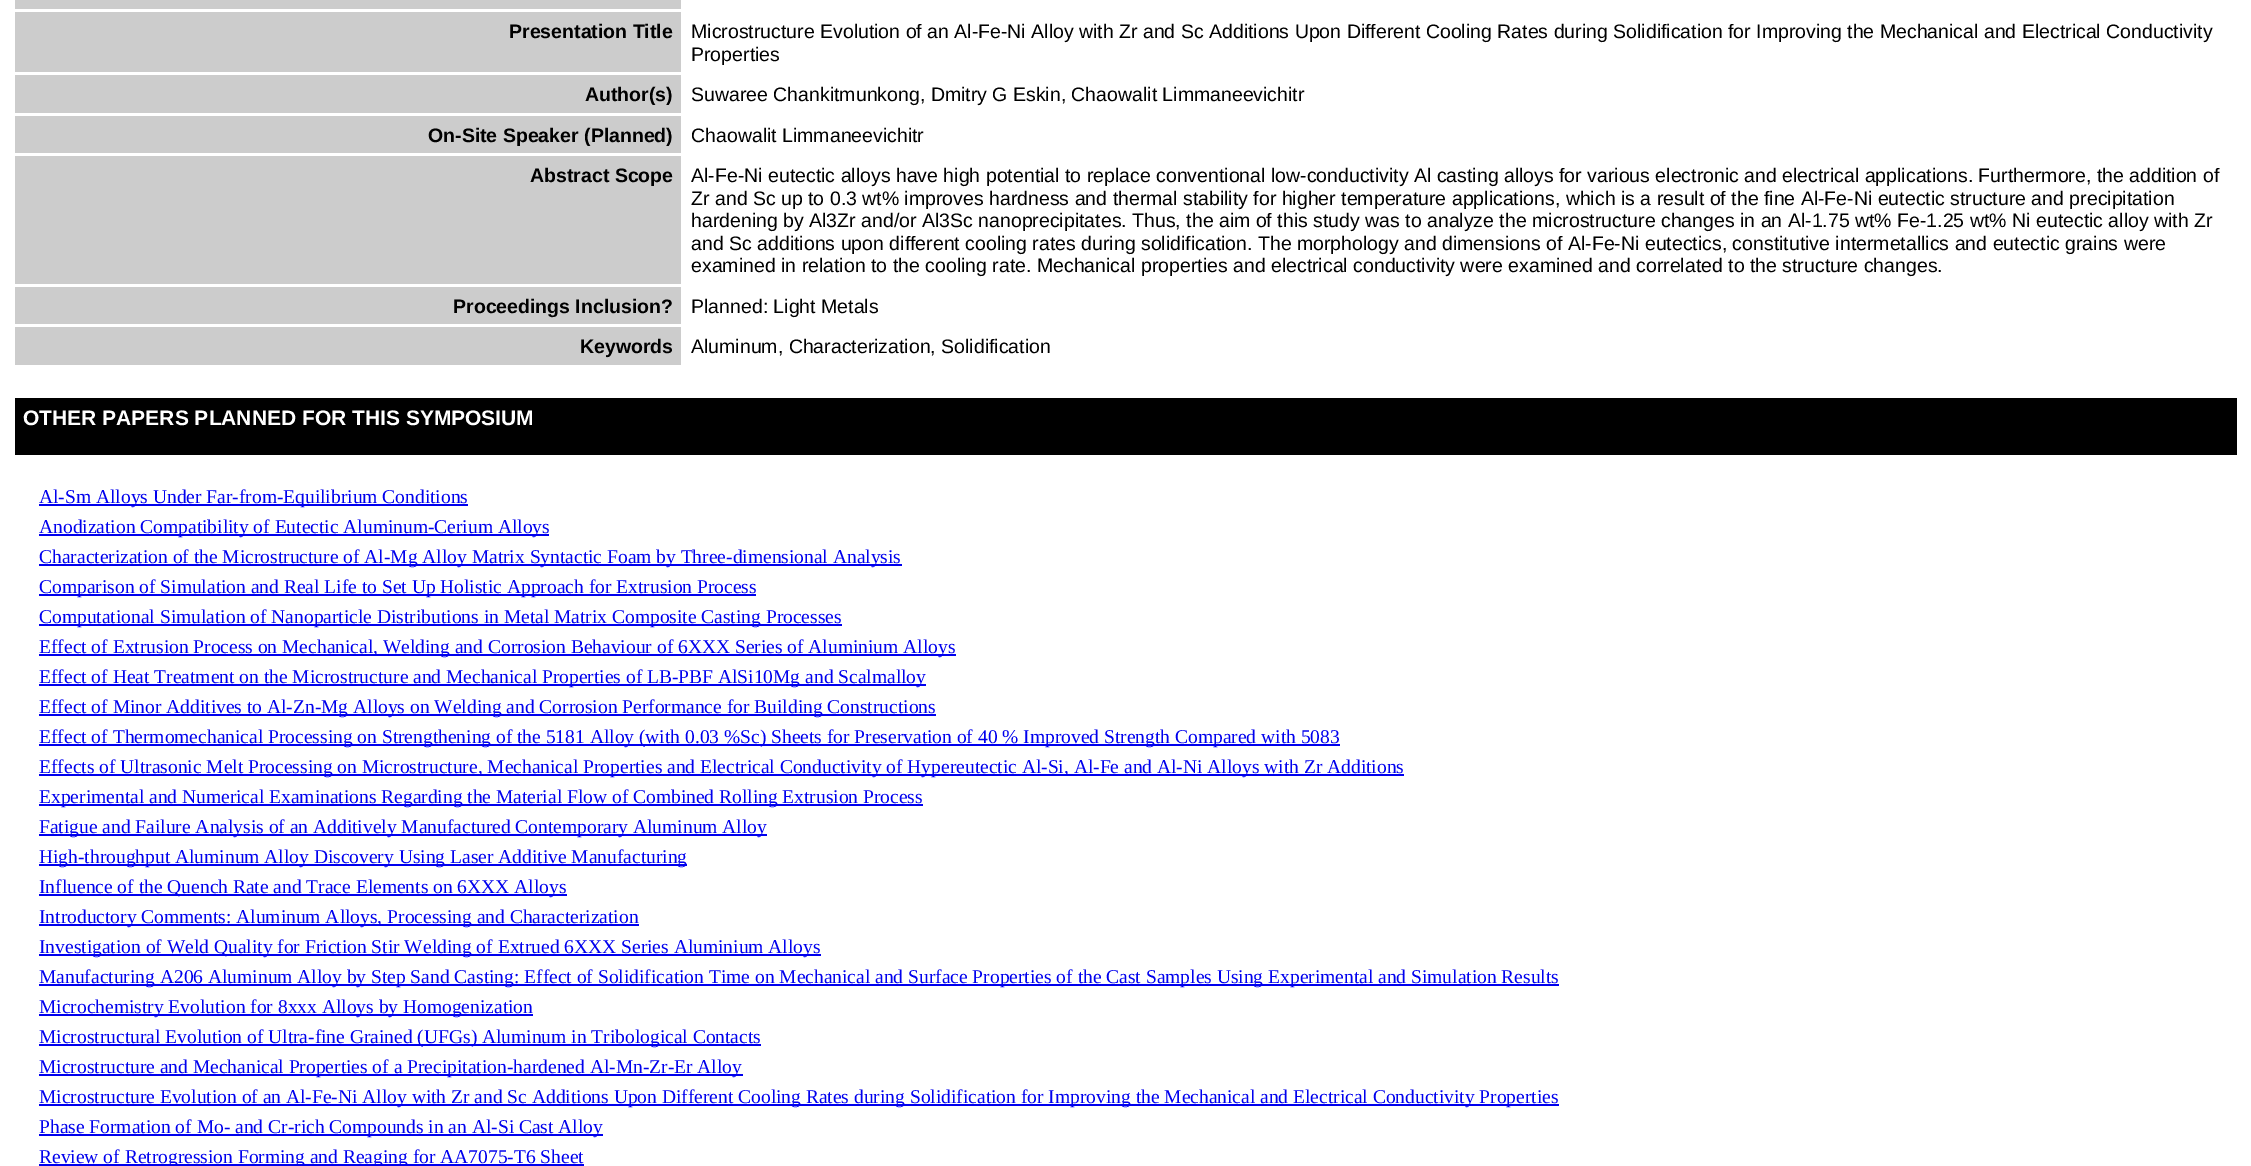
%!PS-Adobe-3.0
%%BoundingBox: 0 0 2251 1166
%%LanguageLevel: 3
%%Pages: 1
%%EndComments
%%BeginProlog
/setink { 3 { 255 div 3 1 roll } repeat setrgbcolor } def
/usefont { [ exch dup neg 0 0 3 -1 roll 0 0 ] selectfont } def
/drawtext { setink usefont moveto show } def
/fillbox { setink rectfill } def
%%EndProlog
%%BeginSetup
<< /PageSize [2251 1166] >> setpagedevice
%%EndSetup
%%Page: 1 1
0 1166 translate 1 -1 scale
4 setmiterlimit
0 0 2251 1166 255 255 255 fillbox
15 0 666 9 204 204 204 fillbox
15 12 666 60 204 204 204 fillbox
(Presentation Title) 509 38 /LiberationSans-Bold 19.5 0 0 0 drawtext
(Microstructure Evolution of an Al-Fe-Ni Alloy with Zr and Sc Additions Upon Different Cooling Rates during Solidification for Improving the Mechanical and Electrical Conductivity) 691 38 /LiberationSans-Regular 19.5 0 0 0 drawtext
(Properties) 691 61 /LiberationSans-Regular 19.5 0 0 0 drawtext
15 75 666 38 204 204 204 fillbox
(Author\(s\)) 585 101 /LiberationSans-Bold 19.5 0 0 0 drawtext
(Suwaree Chankitmunkong, Dmitry G Eskin, Chaowalit Limmaneevichitr) 691 101 /LiberationSans-Regular 19.5 0 0 0 drawtext
15 116 666 37 204 204 204 fillbox
(On-Site Speaker \(Planned\)) 428 142 /LiberationSans-Bold 19.5 0 0 0 drawtext
(Chaowalit Limmaneevichitr) 691 142 /LiberationSans-Regular 19.5 0 0 0 drawtext
15 156 666 128 204 204 204 fillbox
(Abstract Scope) 530 182 /LiberationSans-Bold 19.5 0 0 0 drawtext
(Al-Fe-Ni eutectic alloys have high potential to replace conventional low-conductivity Al casting alloys for various electronic and electrical applications. Furthermore, the addition of) 691 182 /LiberationSans-Regular 19.5 0 0 0 drawtext
(Zr and Sc up to 0.3 wt% improves hardness and thermal stability for higher temperature applications, which is a result of the fine Al-Fe-Ni eutectic structure and precipitation) 691 205 /LiberationSans-Regular 19.5 0 0 0 drawtext
(hardening by Al3Zr and/or Al3Sc nanoprecipitates. Thus, the aim of this study was to analyze the microstructure changes in an Al-1.75 wt% Fe-1.25 wt% Ni eutectic alloy with Zr) 691 227 /LiberationSans-Regular 19.5 0 0 0 drawtext
(and Sc additions upon different cooling rates during solidification. The morphology and dimensions of Al-Fe-Ni eutectics, constitutive intermetallics and eutectic grains were) 691 250 /LiberationSans-Regular 19.5 0 0 0 drawtext
(examined in relation to the cooling rate. Mechanical properties and electrical conductivity were examined and correlated to the structure changes.) 691 272 /LiberationSans-Regular 19.5 0 0 0 drawtext
15 287 666 37 204 204 204 fillbox
(Proceedings Inclusion?) 453 313 /LiberationSans-Bold 19.5 0 0 0 drawtext
(Planned: Light Metals) 691 313 /LiberationSans-Regular 19.5 0 0 0 drawtext
15 327 666 38 204 204 204 fillbox
(Keywords) 580 353 /LiberationSans-Bold 19.5 0 0 0 drawtext
(Aluminum, Characterization, Solidification) 691 353 /LiberationSans-Regular 19.5 0 0 0 drawtext
15 398 2222 57 0 0 0 fillbox
(OTHER PAPERS PLANNED FOR THIS SYMPOSIUM) 23 425 /LiberationSans-Bold 21 255 255 255 drawtext
39 504 429 2 0 0 238 fillbox
(Al-Sm Alloys Under Far-from-Equilibrium Conditions) 39 503 /LiberationSerif-Regular 19.5 0 0 238 drawtext
39 534 510 2 0 0 238 fillbox
(Anodization Compatibility of Eutectic Aluminum-Cerium Alloys) 39 533 /LiberationSerif-Regular 19.5 0 0 238 drawtext
39 564 863 2 0 0 238 fillbox
(Characterization of the Microstructure of Al-Mg Alloy Matrix Syntactic Foam by Three-dimensional Analysis) 39 563 /LiberationSerif-Regular 19.5 0 0 238 drawtext
39 594 717 2 0 0 238 fillbox
(Comparison of Simulation and Real Life to Set Up Holistic Approach for Extrusion Process) 39 593 /LiberationSerif-Regular 19.5 0 0 238 drawtext
39 624 803 2 0 0 238 fillbox
(Computational Simulation of Nanoparticle Distributions in Metal Matrix Composite Casting Processes) 39 623 /LiberationSerif-Regular 19.5 0 0 238 drawtext
39 654 917 2 0 0 238 fillbox
(Effect of Extrusion Process on Mechanical, Welding and Corrosion Behaviour of 6XXX Series of Aluminium Alloys) 39 653 /LiberationSerif-Regular 19.5 0 0 238 drawtext
39 684 887 2 0 0 238 fillbox
(Effect of Heat Treatment on the Microstructure and Mechanical Properties of LB-PBF AlSi10Mg and Scalmalloy) 39 683 /LiberationSerif-Regular 19.5 0 0 238 drawtext
39 714 897 2 0 0 238 fillbox
(Effect of Minor Additives to Al-Zn-Mg Alloys on Welding and Corrosion Performance for Building Constructions) 39 713 /LiberationSerif-Regular 19.5 0 0 238 drawtext
39 744 1301 2 0 0 238 fillbox
(Effect of Thermomechanical Processing on Strengthening of the 5181 Alloy \(with 0.03 %Sc\) Sheets for Preservation of 40 % Improved Strength Compared with 5083) 39 743 /LiberationSerif-Regular 19.5 0 0 238 drawtext
39 774 1365 2 0 0 238 fillbox
(Effects of Ultrasonic Melt Processing on Microstructure, Mechanical Properties and Electrical Conductivity of Hypereutectic Al-Si, Al-Fe and Al-Ni Alloys with Zr Additions) 39 773 /LiberationSerif-Regular 19.5 0 0 238 drawtext
39 804 884 2 0 0 238 fillbox
(Experimental and Numerical Examinations Regarding the Material Flow of Combined Rolling Extrusion Process) 39 803 /LiberationSerif-Regular 19.5 0 0 238 drawtext
39 834 728 2 0 0 238 fillbox
(Fatigue and Failure Analysis of an Additively Manufactured Contemporary Aluminum Alloy) 39 833 /LiberationSerif-Regular 19.5 0 0 238 drawtext
39 864 648 2 0 0 238 fillbox
(High-throughput Aluminum Alloy Discovery Using Laser Additive Manufacturing) 39 863 /LiberationSerif-Regular 19.5 0 0 238 drawtext
39 894 528 2 0 0 238 fillbox
(Influence of the Quench Rate and Trace Elements on 6XXX Alloys) 39 893 /LiberationSerif-Regular 19.5 0 0 238 drawtext
39 924 600 2 0 0 238 fillbox
(Introductory Comments: Aluminum Alloys, Processing and Characterization) 39 923 /LiberationSerif-Regular 19.5 0 0 238 drawtext
39 954 782 2 0 0 238 fillbox
(Investigation of Weld Quality for Friction Stir Welding of Extrued 6XXX Series Aluminium Alloys) 39 953 /LiberationSerif-Regular 19.5 0 0 238 drawtext
39 984 1520 2 0 0 238 fillbox
(Manufacturing A206 Aluminum Alloy by Step Sand Casting: Effect of Solidification Time on Mechanical and Surface Properties of the Cast Samples Using Experimental and Simulation Results) 39 983 /LiberationSerif-Regular 19.5 0 0 238 drawtext
39 1014 494 2 0 0 238 fillbox
(Microchemistry Evolution for 8xxx Alloys by Homogenization) 39 1013 /LiberationSerif-Regular 19.5 0 0 238 drawtext
39 1044 722 2 0 0 238 fillbox
(Microstructural Evolution of Ultra-fine Grained \(UFGs\) Aluminum in Tribological Contacts) 39 1043 /LiberationSerif-Regular 19.5 0 0 238 drawtext
39 1074 704 2 0 0 238 fillbox
(Microstructure and Mechanical Properties of a Precipitation-hardened Al-Mn-Zr-Er Alloy) 39 1073 /LiberationSerif-Regular 19.5 0 0 238 drawtext
39 1104 1520 2 0 0 238 fillbox
(Microstructure Evolution of an Al-Fe-Ni Alloy with Zr and Sc Additions Upon Different Cooling Rates during Solidification for Improving the Mechanical and Electrical Conductivity Properties) 39 1103 /LiberationSerif-Regular 19.5 0 0 238 drawtext
39 1134 564 2 0 0 238 fillbox
(Phase Formation of Mo- and Cr-rich Compounds in an Al-Si Cast Alloy) 39 1133 /LiberationSerif-Regular 19.5 0 0 238 drawtext
39 1164 545 2 0 0 238 fillbox
(Review of Retrogression Forming and Reaging for AA7075-T6 Sheet) 39 1163 /LiberationSerif-Regular 19.5 0 0 238 drawtext
showpage
%%EOF
